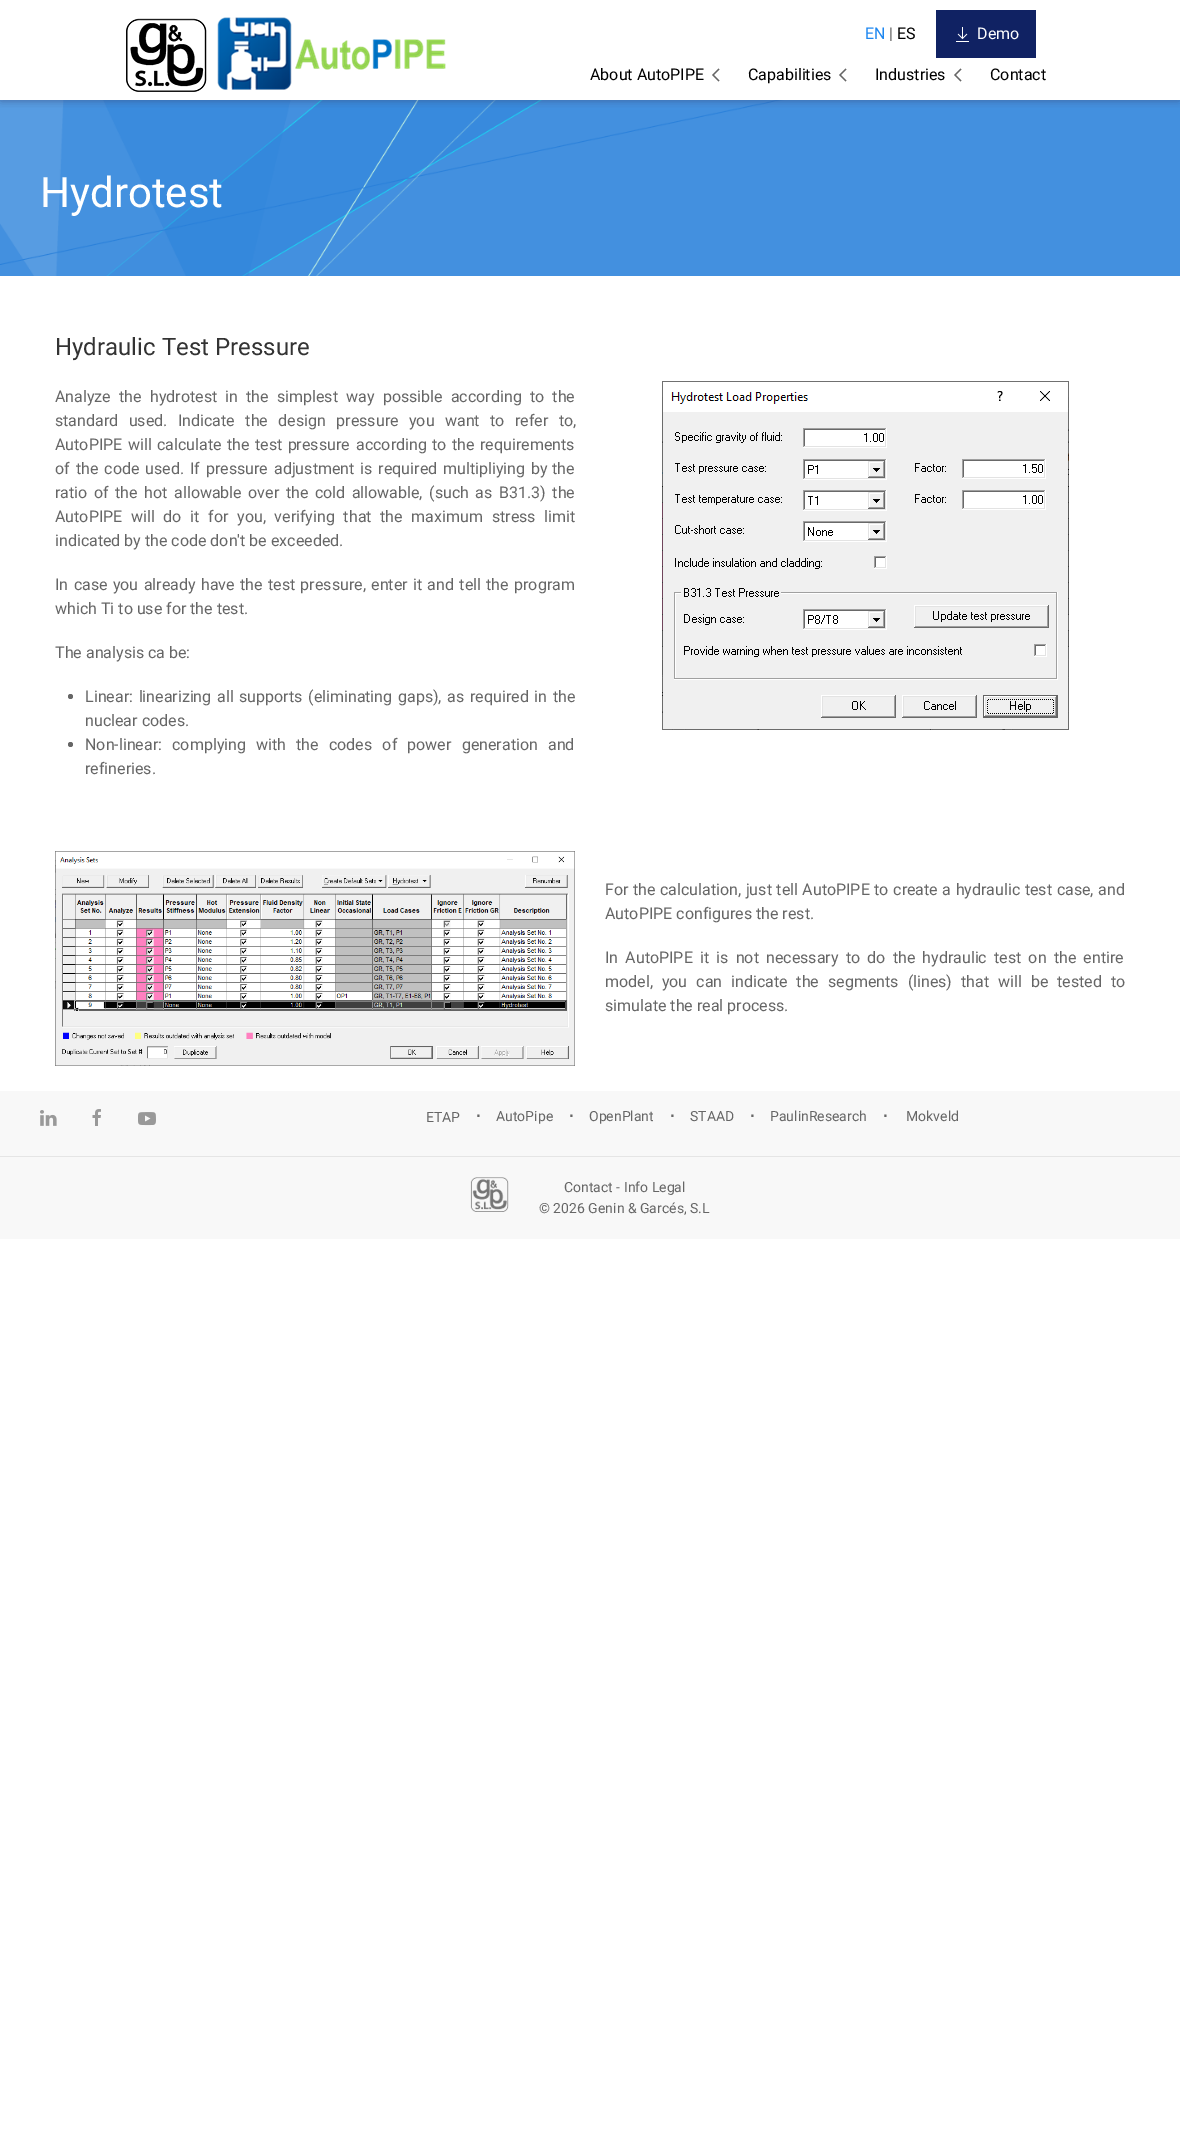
%!PS-Adobe-3.0
%%BoundingBox: 0 0 1180 2138
%%LanguageLevel: 3
%%Pages: 1
%%EndComments
%%BeginProlog
/setink { 3 { 255 div 3 1 roll } repeat setrgbcolor } def
/usefont { [ exch dup neg 0 0 3 -1 roll 0 0 ] selectfont } def
/drawtext { setink usefont moveto show } def
/fillbox { setink rectfill } def
/setalpha { dup .setfillconstantalpha .setstrokeconstantalpha } def
/disc { newpath 0 360 arc closepath } def
/rrect { 5 dict begin { /r /h /w /y /x } { exch def } forall
  x r add y moveto x w add y 2 copy h add r arct x w add y h add x 1 index r arct
  x y h add x y r arct x y 2 copy exch w add exch r arct closepath end } def
/softshadow { 12 dict begin { /a /b /q /h /w /y /x } { exch def } forall gsave /was 0 def
  9 -2 -9 { dup b mul 4 div /e exch def 1 sub .425 mul 2.718 exch exp 1 add a .99 .min exch div /now exch def
    1 1 now sub 1 was sub div sub setalpha /was now def
    w h .min e 2 mul add 0 gt { x e sub y e sub w e 2 mul add h e 2 mul add
      q e add b .6 mul add w h .min 2 div e add .min 0 .max rrect fill } if } for grestore end } def
/drawimage { 5 dict begin { /h /w /y /x /name } { exch def } forall
  gsave x y translate w h scale
  w h 8 [w 0 0 h 0 0] name (r) file false 3 colorimage grestore end } def
%%EndProlog
%%BeginSetup
<< /PageSize [1180 2138] /PageUsesTransparency true >> setpagedevice
%%EndSetup
%%Page: 1 1
0 .pushpdf14devicefilter
0 2138 translate 1 -1 scale
4 setmiterlimit
0 0 1180 2138 255 255 255 fillbox
(assets/img4.rgb) 0 100 1180 176 drawimage
gsave
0 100 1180 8 rectclip
60 82 132 setink
1 1 1178 98 0 4.5 1 softshadow
grestore
(assets/img1.rgb) 126 18 81 74 drawimage
(assets/img2.rgb) 217 17 229 73 drawimage
(EN) 865 39 /Roboto-Regular 16 30 135 240 drawtext
(|) 889 39 /Roboto-Regular 16 102 102 102 drawtext
(ES) 897 39 /Roboto-Regular 16 0 0 0 drawtext
936 10 100 48 16 34 99 fillbox
(assets/img3.rgb) 956 27 13 15 drawimage
(Demo) 977 39 /Roboto-Regular 16 255 255 255 drawtext
(About AutoPIPE) 590 80 /Roboto-Regular 16 0 0 0 drawtext
102 102 102 setink
1.1 setlinewidth
719 69 moveto 713 75 lineto 719 81 lineto stroke
(Capabilities) 748 80 /Roboto-Regular 16 0 0 0 drawtext
102 102 102 setink
846 69 moveto 840 75 lineto 846 81 lineto stroke
(Industries) 875 80 /Roboto-Regular 16 0 0 0 drawtext
102 102 102 setink
961 69 moveto 955 75 lineto 961 81 lineto stroke
(Contact) 990 80 /Roboto-Regular 16 0 0 0 drawtext
(Hydrotest) 40 207 /Roboto-Regular 42 255 255 255 drawtext
(Hydraulic Test Pressure) 55 355 /Roboto-Regular 24 51 51 51 drawtext
/Roboto-Regular 16 usefont
102 102 102 setink
55 402 moveto 4.25 0 32 (Analyze the hydrotest in the simplest way possible according to the) widthshow
55 426 moveto 6.5 0 32 (standard used.) widthshow
178 426 moveto 6.5 0 32 (Indicate the design pressure you want to refer to,) widthshow
55 450 moveto 1.5 0 32 (AutoPIPE will calculate the test pressure) widthshow
356 450 moveto 1.5 0 32 (according to the requirements) widthshow
55 474 moveto 2 0 32 (of the code used. If pressure adjustment is required multipliying by) widthshow
(the) 552 474 /Roboto-Regular 16 102 102 102 drawtext
55 498 moveto 2.6 0 32 (ratio of the hot allowable over the cold allowable, \(such as B31.3\) the) widthshow
55 522 moveto 4.75 0 32 (AutoPIPE will do it for) widthshow
237 522 moveto 4.75 0 32 (you, verifying that the maximum stress limit) widthshow
(indicated by the code don't be exceeded.) 55 546 /Roboto-Regular 16 102 102 102 drawtext
55 590 moveto 1.4 0 32 (In case you already have the test pressure, enter it and tell the program) widthshow
(which Ti to use for the test.) 55 614 /Roboto-Regular 16 102 102 102 drawtext
(The analysis ca be:) 55 658 /Roboto-Regular 16 102 102 102 drawtext
70.5 696.5 2.5 disc fill
85 702 moveto 1.75 0 32 (Linear: linearizing all supports \(eliminating gaps\), as required in the) widthshow
(nuclear codes.) 85 726 /Roboto-Regular 16 102 102 102 drawtext
70.5 744.5 2.5 disc fill
85 750 moveto 6.25 0 32 (Non-linear: complying with the codes of power generation and) widthshow
(refineries.) 85 774 /Roboto-Regular 16 102 102 102 drawtext
(assets/img5.rgb) 662 381 407 349 drawimage
(assets/img6.rgb) 55 851 520 215 drawimage
605 895 moveto 0.6 0 32 (For the calculation, just tell AutoPIPE to create a hydraulic test case, and) widthshow
(AutoPIPE configures the rest.) 605 919 /Roboto-Regular 16 102 102 102 drawtext
605 963 moveto 3.25 0 32 (In AutoPIPE it is not necessary to do the hydraulic test on the entire) widthshow
605 987 moveto 5 0 32 (model, you can indicate the) widthshow
828 987 moveto 5 0 32 (segments \(lines\) that will be tested to) widthshow
(simulate the real process.) 605 1011 /Roboto-Regular 16 102 102 102 drawtext
0 1091 1180 148 248 248 248 fillbox
(assets/img7.rgb) 40 1110 17 16 drawimage
(assets/img8.rgb) 92 1109 9 17 drawimage
(assets/img9.rgb) 138 1112 18 14 drawimage
(ETAP) 426 1122 /Roboto-Regular 14 102 102 102 drawtext
(⋅) 475 1123 /DejaVuSans-Regular 21 102 102 102 drawtext
(AutoPipe) 496 1121 /Roboto-Regular 14 102 102 102 drawtext
(⋅) 568 1123 /DejaVuSans-Regular 21 102 102 102 drawtext
(OpenPlant) 589 1121 /Roboto-Regular 14 102 102 102 drawtext
(⋅) 669 1123 /DejaVuSans-Regular 21 102 102 102 drawtext
(STAAD) 690 1121 /Roboto-Regular 14 102 102 102 drawtext
(⋅) 749 1123 /DejaVuSans-Regular 21 102 102 102 drawtext
(PaulinResearch) 770 1121 /Roboto-Regular 14 102 102 102 drawtext
(⋅) 882 1123 /DejaVuSans-Regular 21 102 102 102 drawtext
(Mokveld) 906 1121 /Roboto-Regular 14 102 102 102 drawtext
0 1156 1180 1 229 229 229 fillbox
(assets/img10.rgb) 470 1177 39 35 drawimage
(Contact - Info Legal) 564 1192 /Roboto-Regular 14 102 102 102 drawtext
(© 2026 Genin & Garcés, S.L) 539 1213 /Roboto-Regular 14 102 102 102 drawtext
.poppdf14devicefilter showpage
%%EOF
